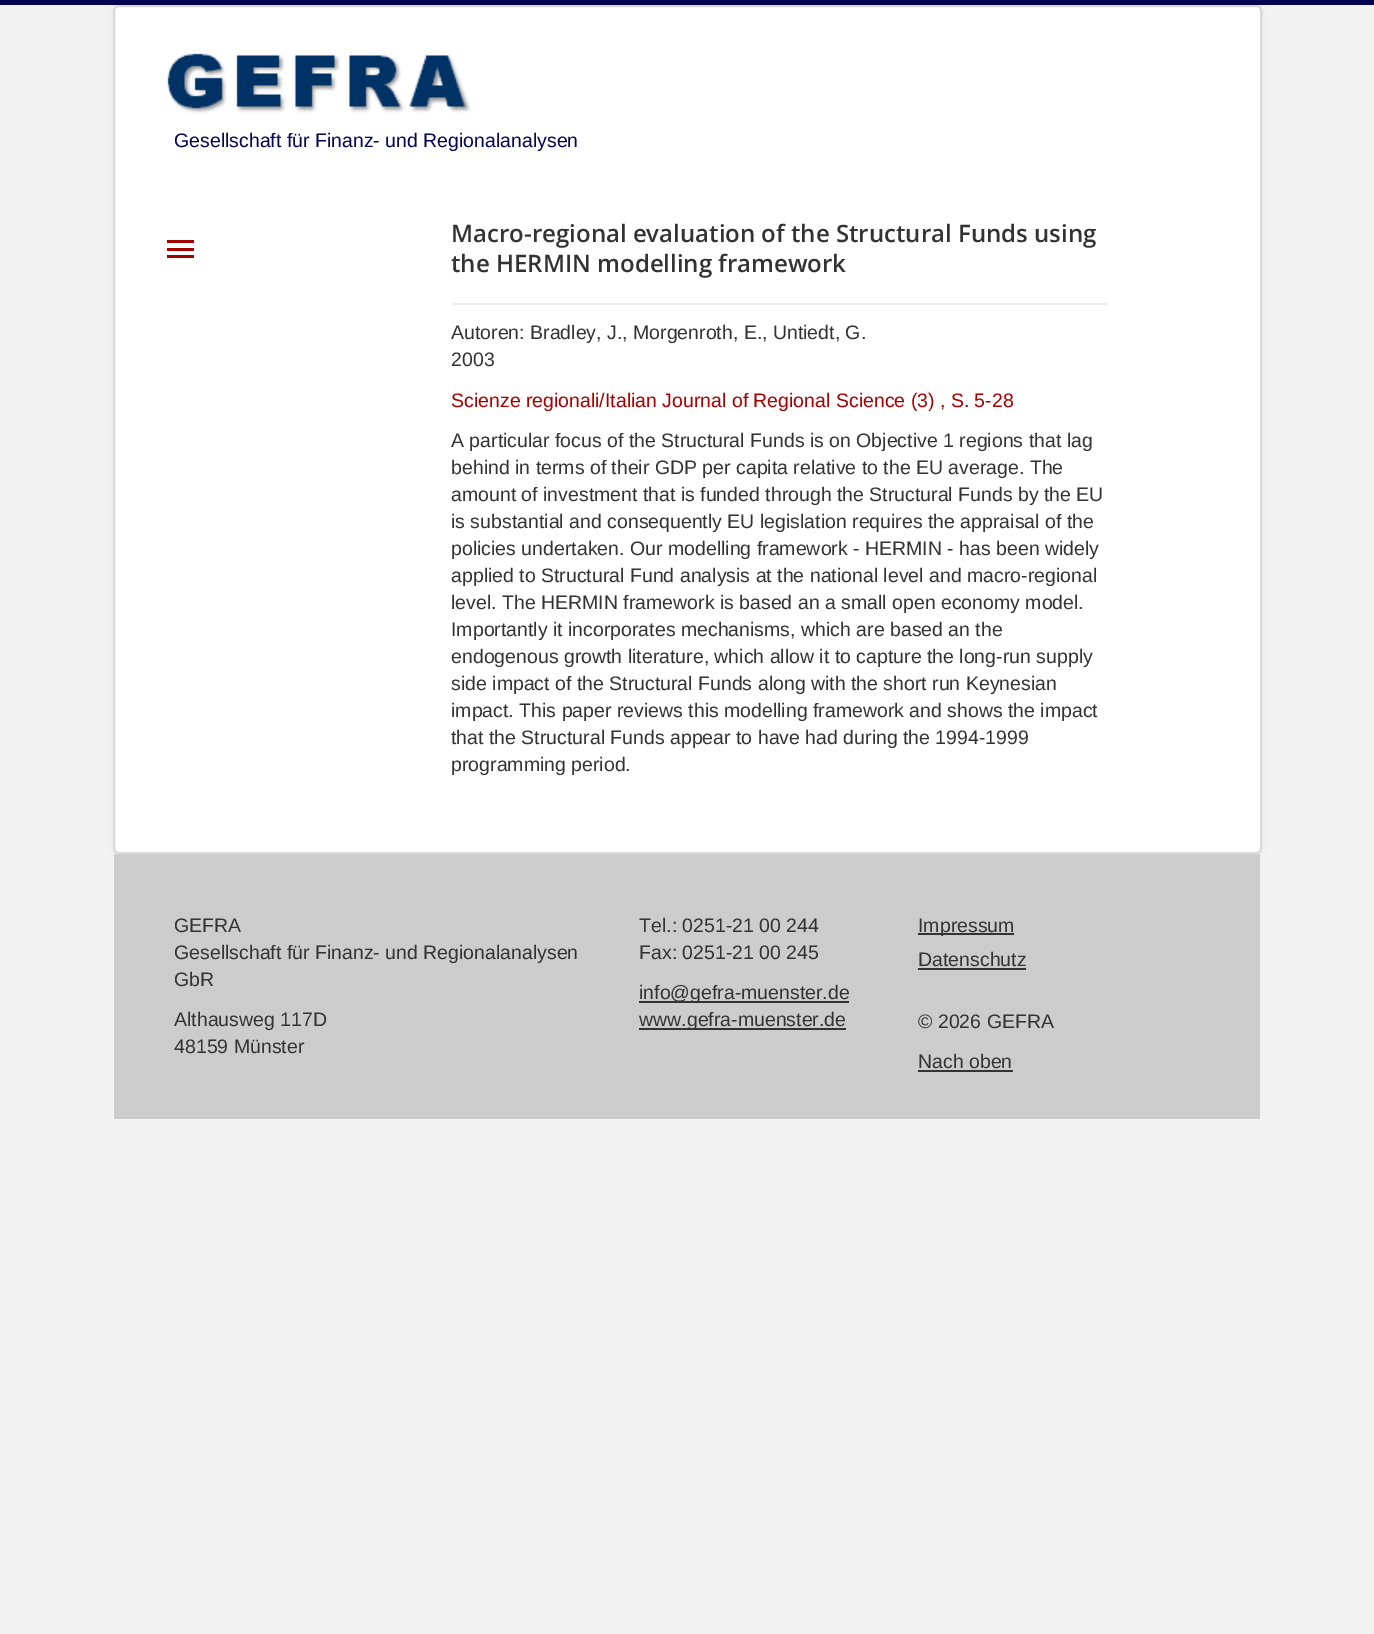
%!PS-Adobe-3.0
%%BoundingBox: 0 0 1374 1634
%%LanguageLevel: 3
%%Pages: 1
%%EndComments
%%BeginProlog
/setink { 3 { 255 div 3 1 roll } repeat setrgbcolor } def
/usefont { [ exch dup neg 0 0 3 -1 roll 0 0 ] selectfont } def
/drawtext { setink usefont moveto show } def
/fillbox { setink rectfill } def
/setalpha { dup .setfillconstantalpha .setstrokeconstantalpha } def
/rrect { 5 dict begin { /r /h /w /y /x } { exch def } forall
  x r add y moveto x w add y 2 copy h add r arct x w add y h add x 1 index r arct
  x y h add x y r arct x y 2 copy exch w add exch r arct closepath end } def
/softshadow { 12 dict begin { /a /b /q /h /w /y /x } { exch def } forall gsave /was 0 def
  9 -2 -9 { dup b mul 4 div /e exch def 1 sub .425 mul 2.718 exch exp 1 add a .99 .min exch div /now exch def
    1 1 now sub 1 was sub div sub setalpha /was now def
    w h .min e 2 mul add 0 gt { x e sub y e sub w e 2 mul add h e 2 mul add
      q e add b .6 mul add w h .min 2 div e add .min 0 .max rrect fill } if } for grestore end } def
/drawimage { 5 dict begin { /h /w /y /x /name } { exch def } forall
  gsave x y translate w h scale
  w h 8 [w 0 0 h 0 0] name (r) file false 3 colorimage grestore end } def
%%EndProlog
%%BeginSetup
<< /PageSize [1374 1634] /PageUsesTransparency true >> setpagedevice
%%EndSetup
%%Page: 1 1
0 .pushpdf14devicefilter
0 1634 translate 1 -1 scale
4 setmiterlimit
0 0 1374 1634 243 243 244 fillbox
0 0 1374 5 3 5 82 fillbox
0 0 0 setink
113 5 1149 849 6 4.5 0.05 softshadow
255 255 255 setink
113 5 1149 849 6 rrect fill
0.15 setalpha
0 0 0 setink
2 setlinewidth
114 6 1147 847 5 rrect stroke
1 setalpha
(assets/img1.rgb) 167 53 304 61 drawimage
(Gesellschaft für Finanz- und Regionalanalysen) 174 147 /LiberationSans-Regular 19.5 3 5 82 drawtext
167 240 27 3 166 0 0 fillbox
167 248 27 3 166 0 0 fillbox
167 255 27 3 166 0 0 fillbox
452 303 655 2 238 238 238 fillbox
(Macro-regional evaluation of the Structural Funds using) 451 242 /OpenSans-SemiBold 24 51 51 51 drawtext
(the HERMIN modelling framework) 451 272 /OpenSans-SemiBold 24 51 51 51 drawtext
(Autoren: Bradley, J., Morgenroth, E., Untiedt, G.) 451 339 /LiberationSans-Regular 19.5 51 51 51 drawtext
(2003) 451 366 /LiberationSans-Regular 19.5 51 51 51 drawtext
(Scienze regionali/Italian Journal of Regional Science \(3\) , S. 5-28) 451 407 /LiberationSans-Regular 19.5 166 0 0 drawtext
(A particular focus of the Structural Funds is on Objective 1 regions that lag) 451 447 /LiberationSans-Regular 19.5 51 51 51 drawtext
(behind in terms of their GDP per capita relative to the EU average. The) 451 474 /LiberationSans-Regular 19.5 51 51 51 drawtext
(amount of investment that is funded through the Structural Funds by the EU) 451 501 /LiberationSans-Regular 19.5 51 51 51 drawtext
(is substantial and consequently EU legislation requires the appraisal of the) 451 528 /LiberationSans-Regular 19.5 51 51 51 drawtext
(policies undertaken. Our modelling framework - HERMIN - has been widely) 451 555 /LiberationSans-Regular 19.5 51 51 51 drawtext
(applied to Structural Fund analysis at the national level and macro-regional) 451 582 /LiberationSans-Regular 19.5 51 51 51 drawtext
(level. The HERMIN framework is based an a small open economy model.) 451 609 /LiberationSans-Regular 19.5 51 51 51 drawtext
(Importantly it incorporates mechanisms, which are based an the) 451 636 /LiberationSans-Regular 19.5 51 51 51 drawtext
(endogenous growth literature, which allow it to capture the long-run supply) 451 663 /LiberationSans-Regular 19.5 51 51 51 drawtext
(side impact of the Structural Funds along with the short run Keynesian) 451 690 /LiberationSans-Regular 19.5 51 51 51 drawtext
(impact. This paper reviews this modelling framework and shows the impact) 451 717 /LiberationSans-Regular 19.5 51 51 51 drawtext
(that the Structural Funds appear to have had during the 1994-1999) 451 744 /LiberationSans-Regular 19.5 51 51 51 drawtext
(programming period.) 451 771 /LiberationSans-Regular 19.5 51 51 51 drawtext
114 854 1146 265 204 204 204 fillbox
(GEFRA) 174 932 /LiberationSans-Regular 19.5 51 51 51 drawtext
(Gesellschaft für Finanz- und Regionalanalysen) 174 959 /LiberationSans-Regular 19.5 51 51 51 drawtext
(GbR) 174 986 /LiberationSans-Regular 19.5 51 51 51 drawtext
(Althausweg 117D) 174 1026 /LiberationSans-Regular 19.5 51 51 51 drawtext
(48159 Münster) 174 1053 /LiberationSans-Regular 19.5 51 51 51 drawtext
(Tel.: 0251-21 00 244) 639 932 /LiberationSans-Regular 19.5 51 51 51 drawtext
(Fax: 0251-21 00 245) 639 959 /LiberationSans-Regular 19.5 51 51 51 drawtext
639 1001 210 2 51 51 51 fillbox
(info@gefra-muenster.de) 639 999 /LiberationSans-Regular 19.5 51 51 51 drawtext
639 1028 207 2 51 51 51 fillbox
(www.gefra-muenster.de) 639 1026 /LiberationSans-Regular 19.5 51 51 51 drawtext
918 933 96 2 51 51 51 fillbox
(Impressum) 918 932 /LiberationSans-Regular 19.5 51 51 51 drawtext
(Datenschutz) 918 966 /LiberationSans-Regular 19.5 51 51 51 drawtext
918 968 108 2 51 51 51 fillbox
(© 2026 GEFRA) 918 1028 /LiberationSans-Regular 19.5 51 51 51 drawtext
(Nach oben) 918 1068 /LiberationSans-Regular 19.5 51 51 51 drawtext
918 1070 95 2 51 51 51 fillbox
.poppdf14devicefilter showpage
%%EOF
